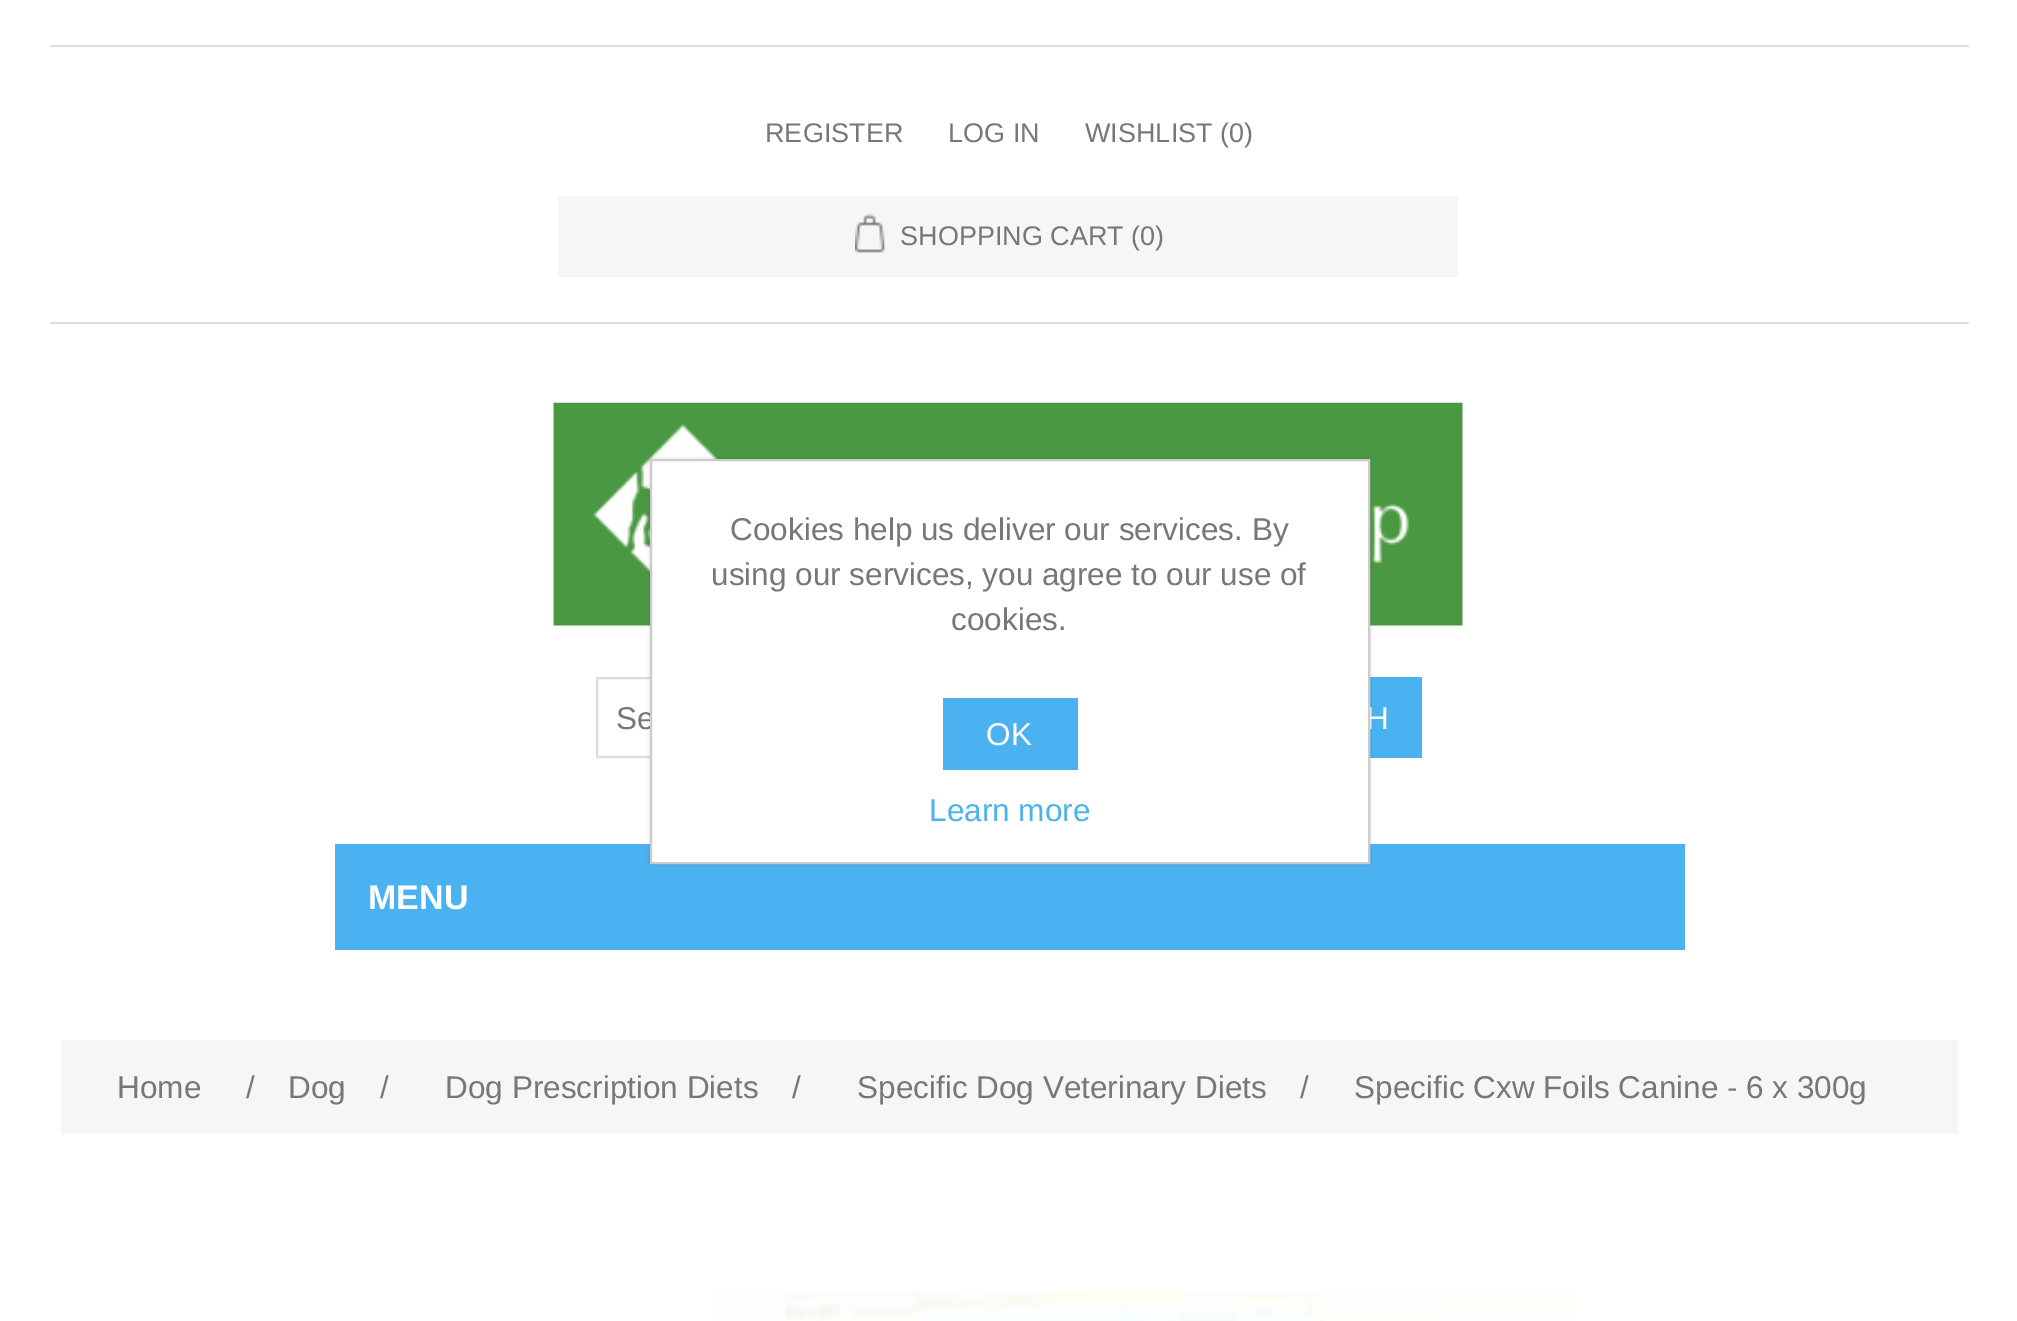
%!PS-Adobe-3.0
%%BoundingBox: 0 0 2017 1321
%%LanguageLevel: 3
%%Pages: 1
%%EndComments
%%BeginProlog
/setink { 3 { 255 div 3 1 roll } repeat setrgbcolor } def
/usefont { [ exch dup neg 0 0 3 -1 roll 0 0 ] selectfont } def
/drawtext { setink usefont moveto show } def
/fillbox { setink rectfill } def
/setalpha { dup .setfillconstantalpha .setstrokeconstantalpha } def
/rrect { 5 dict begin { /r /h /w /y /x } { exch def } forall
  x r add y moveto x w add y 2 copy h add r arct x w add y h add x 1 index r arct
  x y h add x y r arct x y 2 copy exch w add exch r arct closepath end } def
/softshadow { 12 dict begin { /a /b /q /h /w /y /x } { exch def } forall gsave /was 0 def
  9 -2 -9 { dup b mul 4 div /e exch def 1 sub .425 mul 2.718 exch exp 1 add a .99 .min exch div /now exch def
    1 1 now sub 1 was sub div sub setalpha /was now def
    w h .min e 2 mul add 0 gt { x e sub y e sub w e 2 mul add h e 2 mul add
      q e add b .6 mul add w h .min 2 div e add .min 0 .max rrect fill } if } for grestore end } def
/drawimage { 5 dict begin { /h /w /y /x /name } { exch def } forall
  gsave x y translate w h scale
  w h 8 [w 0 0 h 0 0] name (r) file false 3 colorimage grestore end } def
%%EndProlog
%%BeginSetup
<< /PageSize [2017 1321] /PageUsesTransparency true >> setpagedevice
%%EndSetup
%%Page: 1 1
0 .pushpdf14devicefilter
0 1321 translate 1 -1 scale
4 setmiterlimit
0 0 2017 1321 255 255 255 fillbox
50 322 1919 2 221 221 221 fillbox
50 45 1919 2 221 221 221 fillbox
(REGISTER) 765 142 /LiberationSans-Regular 27 119 119 119 drawtext
(LOG IN) 948 142 /LiberationSans-Regular 27 119 119 119 drawtext
(WISHLIST \(0\)) 1085 142 /LiberationSans-Regular 27 119 119 119 drawtext
558 196 900 81 246 246 246 fillbox
(assets/img1.rgb) 855 213 30 40 drawimage
(SHOPPING CART \(0\)) 900 245 /LiberationSans-Regular 27 119 119 119 drawtext
(assets/img2.rgb) 553 402 910 224 drawimage
221 221 221 setink
2 setlinewidth
597 678 628 79 rectstroke
(Se) 616 729 /LiberationSans-Regular 31.5 119 119 119 drawtext
1370 677 52 81 74 178 241 fillbox
(H) 1366 729 /LiberationSans-Regular 31.5 255 255 255 drawtext
335 844 1350 106 74 178 241 fillbox
(MENU) 368 909 /LiberationSans-Bold 34 255 255 255 drawtext
61 1040 1897 94 246 246 246 fillbox
(Home) 117 1098 /LiberationSans-Regular 31.5 119 119 119 drawtext
(/) 246 1098 /LiberationSans-Regular 31.5 119 119 119 drawtext
(Dog) 288 1098 /LiberationSans-Regular 31.5 119 119 119 drawtext
(/) 380 1098 /LiberationSans-Regular 31.5 119 119 119 drawtext
(Dog Prescription Diets) 445 1098 /LiberationSans-Regular 31.5 119 119 119 drawtext
(/) 792 1098 /LiberationSans-Regular 31.5 119 119 119 drawtext
(Specific Dog Veterinary Diets) 857 1098 /LiberationSans-Regular 31.5 119 119 119 drawtext
(/) 1300 1098 /LiberationSans-Regular 31.5 119 119 119 drawtext
(Specific Cxw Foils Canine - 6 x 300g) 1354 1098 /LiberationSans-Regular 31.5 119 119 119 drawtext
(assets/img3.rgb) 713 1292 864 29 drawimage
0 0 0 setink
650 459 720 405 0 2 0.15 softshadow
255 255 255 setink
651 460 moveto 1369 460 lineto 1369 863 lineto 651 863 lineto closepath gsave fill grestore
204 204 204 setink
stroke
(Cookies help us deliver our services. By) 730 540 /LiberationSans-Regular 31.5 119 119 119 drawtext
(using our services, you agree to our use of) 711 585 /LiberationSans-Regular 31.5 119 119 119 drawtext
(cookies.) 951 630 /LiberationSans-Regular 31.5 119 119 119 drawtext
943 698 135 72 74 178 241 fillbox
(OK) 986 745 /LiberationSans-Regular 31.5 255 255 255 drawtext
(Learn more) 929 821 /LiberationSans-Regular 31.5 74 178 241 drawtext
.poppdf14devicefilter showpage
%%EOF
